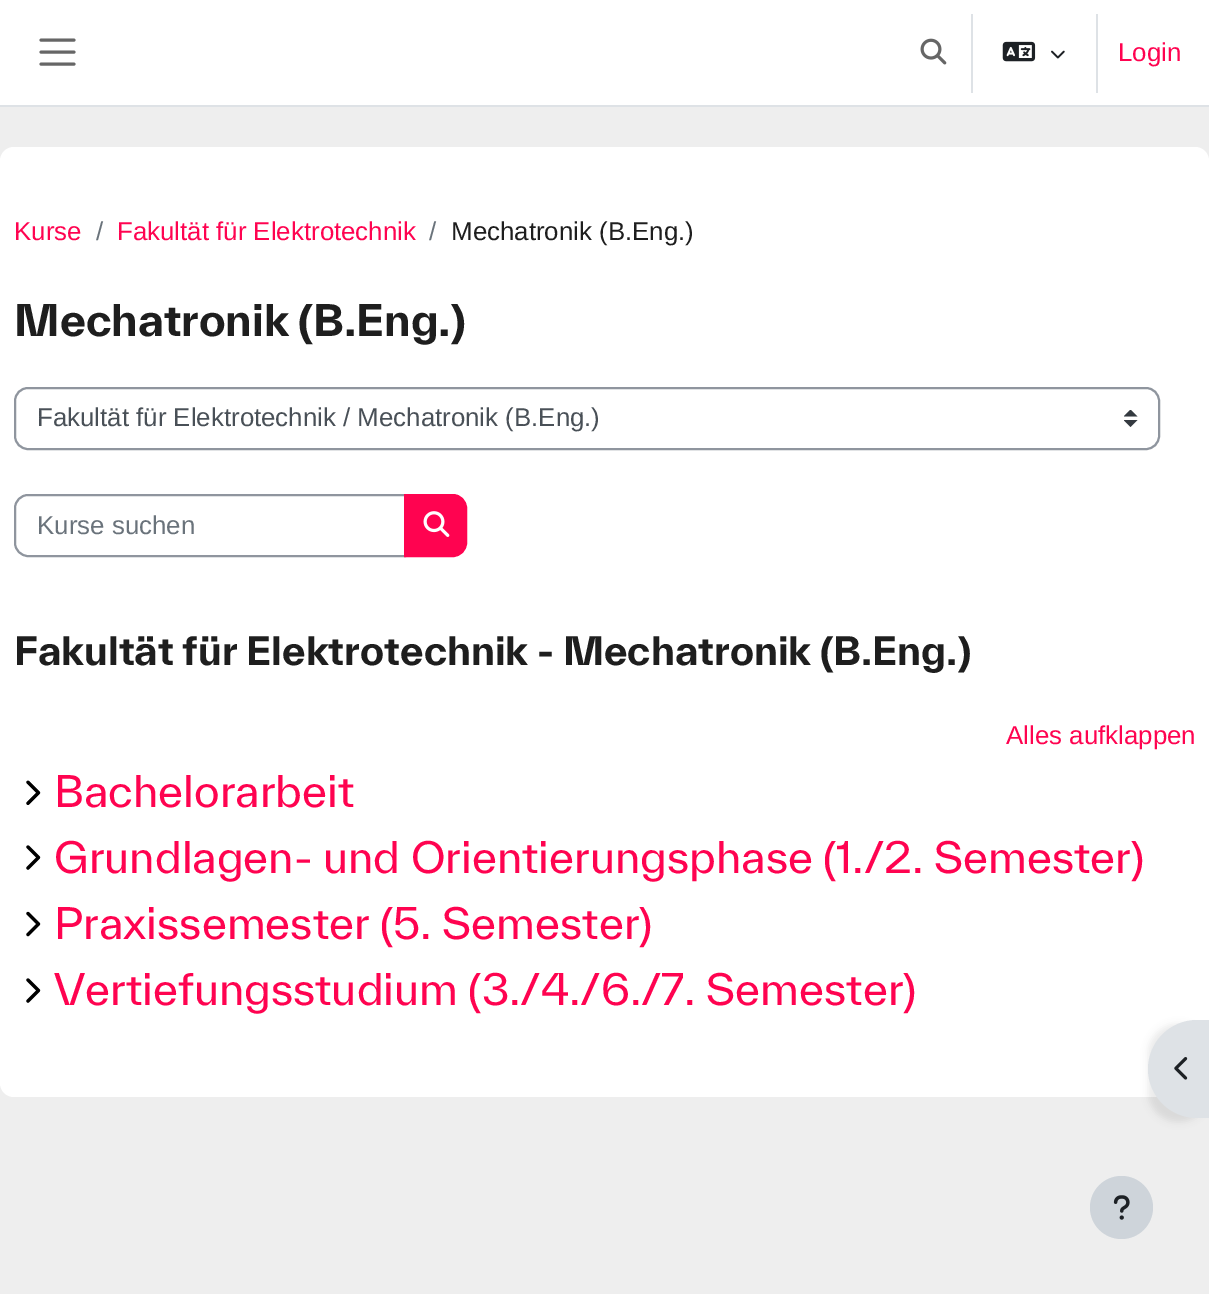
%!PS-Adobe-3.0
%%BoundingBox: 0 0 1209 1294
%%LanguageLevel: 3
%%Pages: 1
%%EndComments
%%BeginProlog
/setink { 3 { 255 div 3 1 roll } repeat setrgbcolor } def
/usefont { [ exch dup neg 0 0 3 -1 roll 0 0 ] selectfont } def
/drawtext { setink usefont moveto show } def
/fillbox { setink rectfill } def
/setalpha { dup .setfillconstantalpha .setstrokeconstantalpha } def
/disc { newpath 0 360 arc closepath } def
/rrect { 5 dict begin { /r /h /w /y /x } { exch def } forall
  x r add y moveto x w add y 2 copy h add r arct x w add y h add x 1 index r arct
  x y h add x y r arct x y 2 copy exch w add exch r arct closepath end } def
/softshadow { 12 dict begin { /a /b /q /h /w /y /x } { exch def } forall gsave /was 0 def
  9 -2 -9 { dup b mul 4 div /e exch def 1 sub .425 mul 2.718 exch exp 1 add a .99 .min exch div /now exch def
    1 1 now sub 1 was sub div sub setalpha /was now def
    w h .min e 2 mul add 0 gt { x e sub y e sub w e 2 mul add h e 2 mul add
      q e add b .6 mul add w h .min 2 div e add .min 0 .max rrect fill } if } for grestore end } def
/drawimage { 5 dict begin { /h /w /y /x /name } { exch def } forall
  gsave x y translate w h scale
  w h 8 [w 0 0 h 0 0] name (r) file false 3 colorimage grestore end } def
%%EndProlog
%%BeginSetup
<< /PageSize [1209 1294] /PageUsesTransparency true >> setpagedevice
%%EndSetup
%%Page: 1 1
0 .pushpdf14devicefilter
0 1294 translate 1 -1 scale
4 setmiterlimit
0 0 1209 1294 238 238 238 fillbox
0 0 1209 105 255 255 255 fillbox
0 105 1209 2 222 226 230 fillbox
102 102 102 setink
3 setlinewidth
1 setlinecap
41 40 moveto 74 40 lineto 41 52 moveto 74 52 lineto 41 64 moveto 74 64 lineto stroke
(assets/img1.rgb) 920 38 27 27 drawimage
971 14 2 79 222 226 230 fillbox
(assets/img2.rgb) 1002 41 34 21 drawimage
(assets/img3.rgb) 1051 50 14 9 drawimage
1096 14 2 79 222 226 230 fillbox
(Login) 1118 61 /LiberationSans-Regular 25.85 255 3 80 drawtext
255 255 255 setink
0 147 1209 950 14 rrect fill
(Kurse) 14 240 /LiberationSans-Regular 25.85 255 3 80 drawtext
(/) 96 240 /LiberationSans-Regular 25.85 106 115 123 drawtext
(Fakultät für Elektrotechnik) 117 240 /LiberationSans-Regular 25.85 255 3 80 drawtext
(/) 429 240 /LiberationSans-Regular 25.85 106 115 123 drawtext
(Mechatronik \(B.Eng.\)) 451 240 /LiberationSans-Regular 25.85 30 30 30 drawtext
(Mechatronik \(B.Eng.\)) 14 336 /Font-Bold 42 30 30 30 drawtext
gsave
1124 410 14 17 rectclip
52 58 64 setink
1130.5 409.5 moveto 1123.5 416.5 lineto 1137.5 416.5 lineto closepath 1130.5 427 moveto 1123.5 420 lineto 1137.5 420 lineto closepath fill
grestore
143 149 158 setink
2 setlinewidth
0 setlinecap
15 388 1144 61 13 rrect stroke
(Fakultät für Elektrotechnik / Mechatronik \(B.Eng.\)) 37 426 /LiberationSans-Regular 25.85 73 80 87 drawtext
143 149 158 setink
28 495 moveto 405 495 lineto 405 556 lineto 28 556 lineto 21 556 15 550 15 543 curveto 15 508 lineto 15 501 21 495 28 495 curveto closepath stroke
(Kurse suchen) 37 534 /LiberationSans-Regular 25.85 106 115 123 drawtext
255 3 80 setink
405 495 moveto 453 495 lineto 460 495 466 501 466 508 curveto 466 543 lineto 466 550 460 556 453 556 curveto 405 556 lineto closepath gsave fill grestore
stroke
(assets/img4.rgb) 423 511 27 26 drawimage
(Fakultät für Elektrotechnik - Mechatronik \(B.Eng.\)) 14 665 /Font-Bold 38 30 30 30 drawtext
(Alles aufklappen) 1006 744 /LiberationSans-Regular 25.85 255 3 80 drawtext
(assets/img5.rgb) 26 780 15 25 drawimage
(Bachelorarbeit) 54 807 /Font-Regular 42 255 3 80 drawtext
(assets/img6.rgb) 26 845 15 25 drawimage
(Grundlagen- und Orientierungsphase \(1./2. Semester\)) 54 873 /Font-Regular 42 255 3 80 drawtext
(assets/img7.rgb) 26 911 15 26 drawimage
(Praxissemester \(5. Semester\)) 54 939 /Font-Regular 42 255 3 80 drawtext
(assets/img6.rgb) 26 978 15 25 drawimage
(Vertiefungsstudium \(3./4./6./7. Semester\)) 54 1005 /Font-Regular 42 255 3 80 drawtext
0 0 0 setink
1148 1024 61 98 49 3.5 0.07 softshadow
222 226 230 setink
1197 1020 moveto 1209 1020 lineto 1209 1118 lineto 1197 1118 lineto 1170 1118 1148 1096 1148 1069 curveto 1148 1042 1170 1020 1197 1020 curveto closepath fill
(assets/img8.rgb) 1174 1057 14 23 drawimage
206 212 218 setink
1121.5 1207.5 31.5 disc fill
(assets/img9.rgb) 1113 1195 17 25 drawimage
.poppdf14devicefilter showpage
%%EOF
